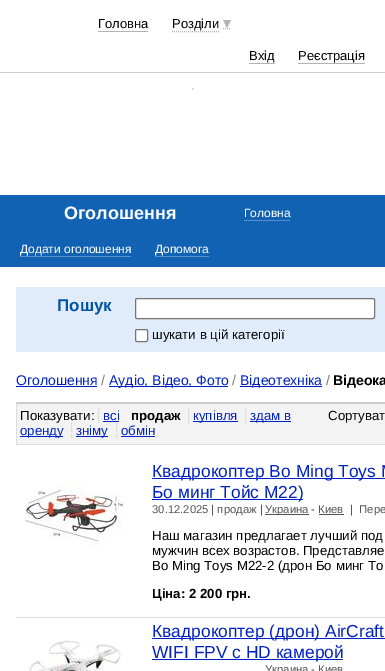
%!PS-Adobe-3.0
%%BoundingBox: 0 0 385 671
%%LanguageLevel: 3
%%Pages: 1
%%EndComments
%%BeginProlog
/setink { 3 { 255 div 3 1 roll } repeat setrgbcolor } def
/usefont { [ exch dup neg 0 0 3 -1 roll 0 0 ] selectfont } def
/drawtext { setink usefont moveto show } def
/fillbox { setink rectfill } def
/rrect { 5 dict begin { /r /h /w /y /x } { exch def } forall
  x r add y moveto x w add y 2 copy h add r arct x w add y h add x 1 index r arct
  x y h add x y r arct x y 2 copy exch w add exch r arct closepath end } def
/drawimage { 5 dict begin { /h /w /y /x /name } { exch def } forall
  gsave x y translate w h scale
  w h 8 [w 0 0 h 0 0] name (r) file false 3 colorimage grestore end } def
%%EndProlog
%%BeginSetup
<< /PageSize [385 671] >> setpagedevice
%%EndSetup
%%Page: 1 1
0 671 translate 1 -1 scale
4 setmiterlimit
0 0 385 671 255 255 255 fillbox
0 72 385 1 204 204 204 fillbox
(Головна) 98 28 /LiberationSans-Regular 13 0 0 0 drawtext
98 31 50 1 179 179 179 fillbox
[1 1] 0 setdash
172 31.5 moveto 219 31.5 lineto 223 28.5 moveto 231 28.5 lineto stroke
(Розділи) 172 28 /LiberationSans-Regular 13 0 0 0 drawtext
179 179 179 setink
223 20 moveto 231 20 lineto 227 28 lineto closepath fill
(Вхід) 249 60 /LiberationSans-Regular 13 0 0 0 drawtext
249 63 26 1 179 179 179 fillbox
(Реєстрація) 298 60 /LiberationSans-Regular 13 0 0 0 drawtext
298 63 67 1 179 179 179 fillbox
192 88 2 2 221 221 221 fillbox
0 195 385 72 17 98 179 fillbox
(Оголошення) 64 219 /LiberationSans-Bold 18 255 255 255 drawtext
(Головна) 244 217 /LiberationSans-Regular 12 255 255 255 drawtext
244 220 46 1 88 145 202 fillbox
(Додати оголошення) 20 253 /LiberationSans-Regular 12 255 255 255 drawtext
20 256 111 1 88 145 202 fillbox
(Допомога) 155 253 /LiberationSans-Regular 12 255 255 255 drawtext
155 256 54 1 88 145 202 fillbox
16 287 369 65 225 236 250 fillbox
(Пошук) 57 311 /LiberationSans-Bold 17 0 83 165 drawtext
255 255 255 setink
135.5 298.5 239 20 1.5 rrect gsave fill grestore
118 118 118 setink
[] 0 setdash
stroke
255 255 255 setink
135.5 329.5 12 12 1.5 rrect gsave fill grestore
118 118 118 setink
stroke
(шукати в цій категорії) 152 339 /LiberationSans-Regular 13.25 0 0 0 drawtext
(Оголошення) 16 385 /LiberationSans-Regular 14 0 33 195 drawtext
16 386 81 1 0 33 195 fillbox
(/) 101 385 /LiberationSans-Regular 14 119 119 119 drawtext
109 386 119 1 0 33 195 fillbox
(Аудіо, Відео, Фото) 109 385 /LiberationSans-Regular 14 0 33 195 drawtext
(/) 232 385 /LiberationSans-Regular 14 119 119 119 drawtext
240 386 82 1 0 33 195 fillbox
(Відеотехніка) 240 385 /LiberationSans-Regular 14 0 33 195 drawtext
(/) 326 385 /LiberationSans-Regular 14 119 119 119 drawtext
(Відеока) 333 385 /LiberationSans-Bold 14 0 0 0 drawtext
17 404 368 40 243 243 243 fillbox
204 204 204 setink
16 402 moveto 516 402 lineto 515 404 lineto 17 404 lineto closepath fill
16 444 369 1 221 221 221 fillbox
16 445 moveto 16 402 lineto 17 404 lineto 17 444 lineto closepath fill
(Показувати:) 20 420 /LiberationSans-Regular 13.25 0 0 0 drawtext
(всі) 103 420 /LiberationSans-Regular 13.25 0 33 195 drawtext
204 204 204 setink
[1 1] 0 setdash
98.5 408 moveto 98.5 423 lineto stroke
103 421 16 1 0 33 195 fillbox
(продаж) 131 420 /LiberationSans-Bold 13.25 0 0 0 drawtext
193 421 45 1 0 33 195 fillbox
(купівля) 193 420 /LiberationSans-Regular 13.25 0 33 195 drawtext
204 204 204 setink
188.5 408 moveto 188.5 423 lineto stroke
250 421 41 1 0 33 195 fillbox
(здам в) 250 420 /LiberationSans-Regular 13.25 0 33 195 drawtext
204 204 204 setink
245.5 408 moveto 245.5 423 lineto stroke
(Сортуват) 328 420 /LiberationSans-Regular 13.25 0 0 0 drawtext
20 436 43 1 0 33 195 fillbox
(оренду) 20 435 /LiberationSans-Regular 13.25 0 33 195 drawtext
76 436 32 1 0 33 195 fillbox
(зніму) 76 435 /LiberationSans-Regular 13.25 0 33 195 drawtext
204 204 204 setink
71.5 423 moveto 71.5 438 lineto stroke
(обмін) 121 435 /LiberationSans-Regular 13.25 0 33 195 drawtext
204 204 204 setink
116.5 423 moveto 116.5 438 lineto stroke
121 436 34 1 0 33 195 fillbox
(assets/img1.rgb) 25 483 100 64 drawimage
16 617 369 1 221 221 221 fillbox
152 478 233 1 0 33 195 fillbox
(Квадрокоптер Bo Ming Toys M) 152 477 /LiberationSans-Regular 17.4 0 33 195 drawtext
152 499 151 1 0 33 195 fillbox
(Бо минг Тойс М22\)) 152 498 /LiberationSans-Regular 17.4 0 33 195 drawtext
(30.12.2025 | продаж |) 152 513 /LiberationSans-Regular 11.25 85 85 85 drawtext
265 514 44 1 85 85 85 fillbox
(Украина - Киев) 265 513 /LiberationSans-Regular 11.25 85 85 85 drawtext
319 514 25 1 85 85 85 fillbox
(|  Пере) 350 513 /LiberationSans-Regular 11.25 85 85 85 drawtext
(Наш магазин предлагает лучший под) 152 540 /LiberationSans-Regular 13.25 0 0 0 drawtext
(мужчин всех возрастов. Представляе) 152 555 /LiberationSans-Regular 13.25 0 0 0 drawtext
(Bo Ming Toys M22-2 \(дрон Бо минг То) 152 570 /LiberationSans-Regular 13.25 0 0 0 drawtext
(Ціна: 2 200 грн.) 152 598 /LiberationSans-Bold 13.25 0 0 0 drawtext
(assets/img2.rgb) 29 639 92 32 drawimage
152 638 233 1 0 33 195 fillbox
(Квадрокоптер \(дрон\) AirCraft) 152 637 /LiberationSans-Regular 17.4 0 33 195 drawtext
152 659 191 1 0 33 195 fillbox
(WIFI FPV c HD камерой) 152 658 /LiberationSans-Regular 17.4 0 33 195 drawtext
(Украина - Киев) 265 673 /LiberationSans-Regular 11.25 85 85 85 drawtext
showpage
%%EOF
